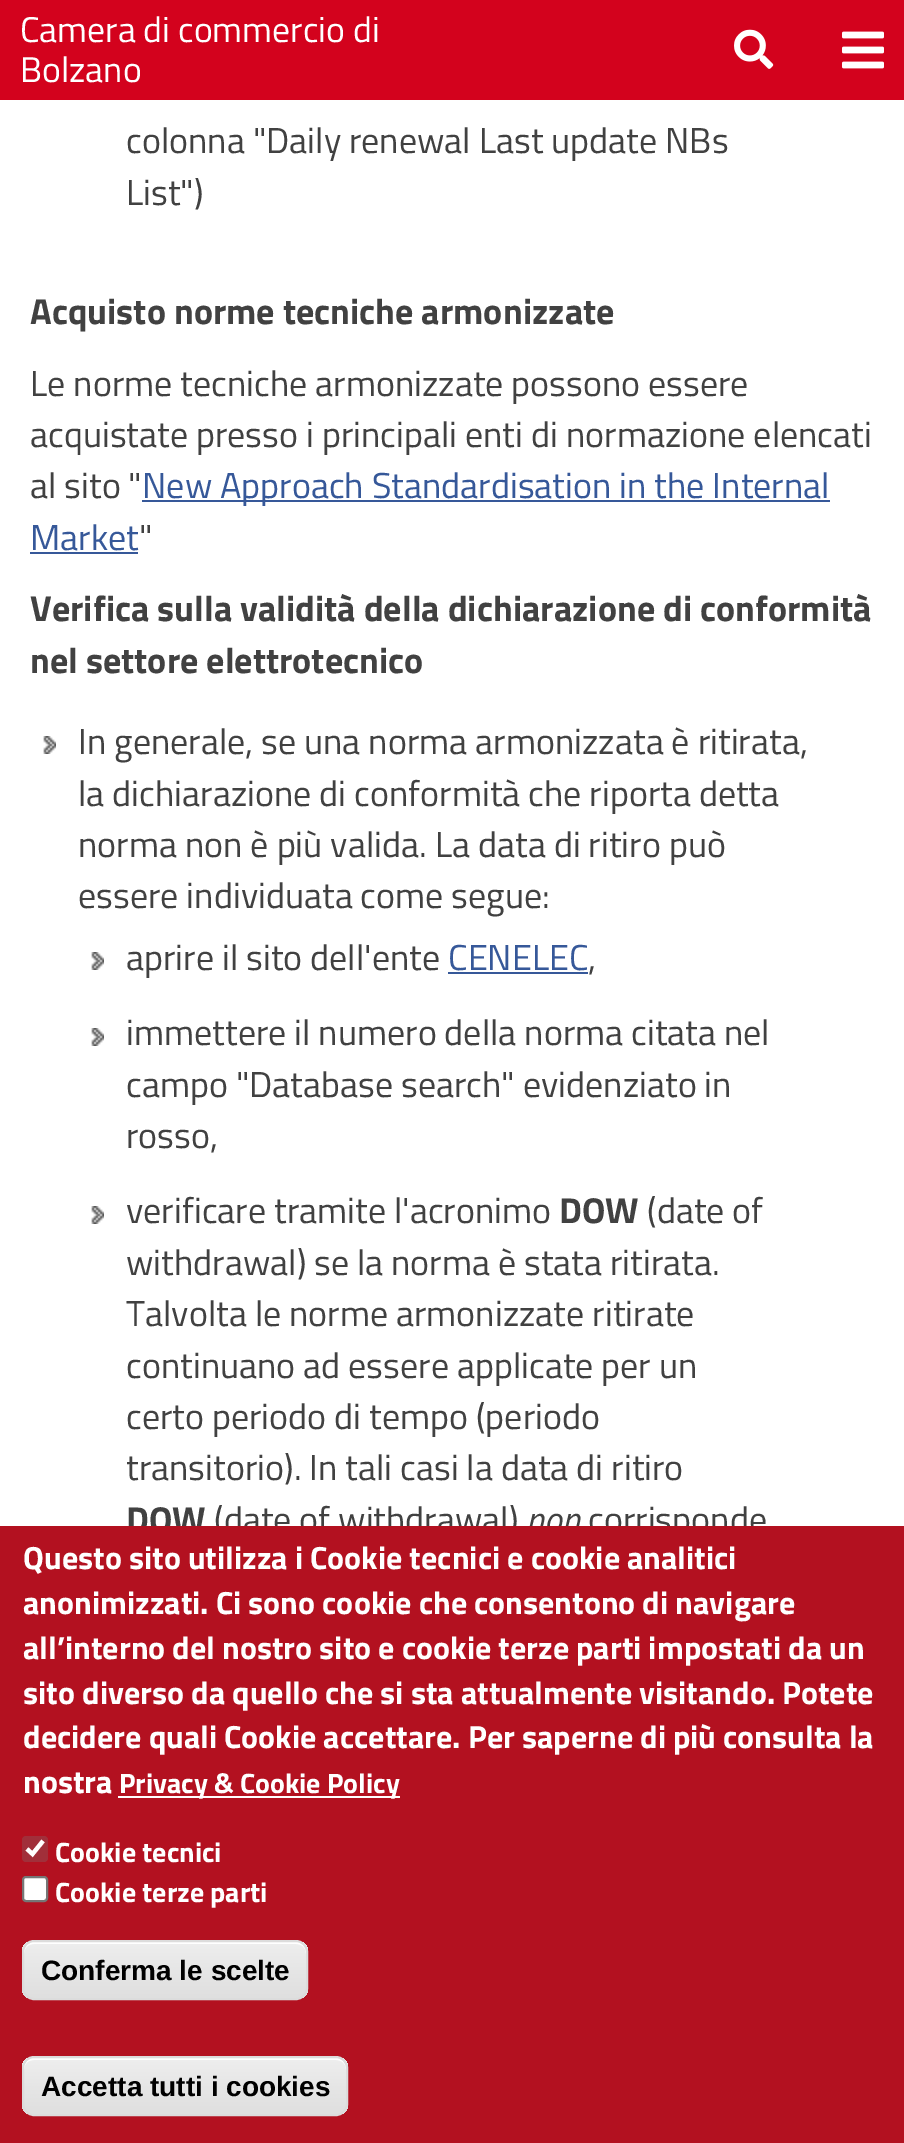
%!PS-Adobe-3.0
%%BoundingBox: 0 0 904 2143
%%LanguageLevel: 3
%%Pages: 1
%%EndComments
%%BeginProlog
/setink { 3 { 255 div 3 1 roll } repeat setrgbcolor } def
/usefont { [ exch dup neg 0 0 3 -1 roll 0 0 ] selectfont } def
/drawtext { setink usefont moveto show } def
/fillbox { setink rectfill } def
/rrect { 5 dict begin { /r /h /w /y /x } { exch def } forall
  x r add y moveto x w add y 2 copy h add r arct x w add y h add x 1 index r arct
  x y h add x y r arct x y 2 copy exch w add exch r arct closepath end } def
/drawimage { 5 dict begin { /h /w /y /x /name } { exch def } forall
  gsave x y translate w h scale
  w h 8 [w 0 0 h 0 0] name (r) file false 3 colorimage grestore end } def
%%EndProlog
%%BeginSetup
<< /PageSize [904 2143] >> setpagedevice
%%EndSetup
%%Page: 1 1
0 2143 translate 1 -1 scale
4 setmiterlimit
0 0 904 2143 255 255 255 fillbox
0 0 904 100 211 2 29 fillbox
(Camera di commercio di) 20 42 /TitilliumWeb-Regular 35.75 255 255 255 drawtext
(Bolzano) 20 82 /TitilliumWeb-Regular 35.75 255 255 255 drawtext
(assets/img1.rgb) 734 29 40 40 drawimage
(assets/img2.rgb) 842 31 42 38 drawimage
(colonna "Daily renewal Last update NBs) 126 153 /TitilliumWeb-Regular 36 65 65 65 drawtext
(List"\)) 126 205 /TitilliumWeb-Regular 36 65 65 65 drawtext
(Acquisto norme tecniche armonizzate) 30 324 /TitilliumWeb-Bold 36 65 65 65 drawtext
(Le norme tecniche armonizzate possono essere) 30 396 /TitilliumWeb-Regular 36 65 65 65 drawtext
(acquistate presso i principali enti di normazione elencati) 30 447 /TitilliumWeb-Regular 36 65 65 65 drawtext
(al sito ") 30 498 /TitilliumWeb-Regular 36 65 65 65 drawtext
142 500 688 2 54 88 153 fillbox
(New Approach Standardisation in the Internal) 142 498 /TitilliumWeb-Regular 36 54 88 153 drawtext
(Market) 30 550 /TitilliumWeb-Regular 36 54 88 153 drawtext
30 552 108 2 54 88 153 fillbox
(") 139 550 /TitilliumWeb-Regular 36 65 65 65 drawtext
(Verifica sulla validità della dichiarazione di conformità) 30 621 /TitilliumWeb-Bold 36 65 65 65 drawtext
(nel settore elettrotecnico) 30 673 /TitilliumWeb-Bold 36 65 65 65 drawtext
(assets/img3.rgb) 43 736 13 18 drawimage
(In generale, se una norma armonizzata è ritirata,) 78 754 /TitilliumWeb-Regular 36 65 65 65 drawtext
(la dichiarazione di conformità che riporta detta) 78 806 /TitilliumWeb-Regular 36 65 65 65 drawtext
(norma non è più valida. La data di ritiro può) 78 857 /TitilliumWeb-Regular 36 65 65 65 drawtext
(essere individuata come segue:) 78 908 /TitilliumWeb-Regular 36 65 65 65 drawtext
(assets/img3.rgb) 91 952 13 18 drawimage
(aprire il sito dell'ente) 126 970 /TitilliumWeb-Regular 36 65 65 65 drawtext
(CENELEC) 448 970 /TitilliumWeb-Regular 36 54 88 153 drawtext
448 972 140 2 54 88 153 fillbox
(,) 588 970 /TitilliumWeb-Regular 36 65 65 65 drawtext
(assets/img3.rgb) 91 1028 13 18 drawimage
(immettere il numero della norma citata nel) 126 1045 /TitilliumWeb-Regular 36 65 65 65 drawtext
(campo "Database search" evidenziato in) 126 1097 /TitilliumWeb-Regular 36 65 65 65 drawtext
(rosso,) 126 1148 /TitilliumWeb-Regular 36 65 65 65 drawtext
(assets/img3.rgb) 91 1206 13 18 drawimage
(verificare tramite l'acronimo) 126 1223 /TitilliumWeb-Regular 36 65 65 65 drawtext
(DOW) 559 1223 /TitilliumWeb-Bold 36 65 65 65 drawtext
(\(date of) 647 1223 /TitilliumWeb-Regular 36 65 65 65 drawtext
(withdrawal\) se la norma è stata ritirata.) 126 1275 /TitilliumWeb-Regular 36 65 65 65 drawtext
(Talvolta le norme armonizzate ritirate) 126 1326 /TitilliumWeb-Regular 36 65 65 65 drawtext
(continuano ad essere applicate per un) 126 1378 /TitilliumWeb-Regular 36 65 65 65 drawtext
(certo periodo di tempo \(periodo) 126 1429 /TitilliumWeb-Regular 36 65 65 65 drawtext
(transitorio\). In tali casi la data di ritiro) 126 1480 /TitilliumWeb-Regular 36 65 65 65 drawtext
(DOW) 126 1532 /TitilliumWeb-Bold 36 65 65 65 drawtext
(\(date of withdrawal\)) 214 1532 /TitilliumWeb-Regular 36 65 65 65 drawtext
(non) 526 1532 /TitilliumWeb-Italic 36 65 65 65 drawtext
(corrisponde) 588 1532 /TitilliumWeb-Regular 36 65 65 65 drawtext
0 1526 904 617 179 17 32 fillbox
(Questo sito utilizza i Cookie tecnici e cookie analitici) 23 1569 /TitilliumWeb-Bold 32 255 255 255 drawtext
(anonimizzati. Ci sono cookie che consentono di navigare) 23 1614 /TitilliumWeb-Bold 32 255 255 255 drawtext
(all’interno del nostro sito e cookie terze parti impostati da un) 23 1659 /TitilliumWeb-Bold 32 255 255 255 drawtext
(sito diverso da quello che si sta attualmente visitando. Potete) 23 1704 /TitilliumWeb-Bold 32 255 255 255 drawtext
(decidere quali Cookie accettare. Per saperne di più consulta la) 23 1748 /TitilliumWeb-Bold 32 255 255 255 drawtext
(nostra) 23 1793 /TitilliumWeb-Bold 32 255 255 255 drawtext
118 1796 282 2 255 255 255 fillbox
(Privacy & Cookie Policy) 119 1793 /TitilliumWeb-Bold 28 255 255 255 drawtext
161 47 58 setink
22 1836 26 26 4 rrect fill
255 255 255 setink
4.2 setlinewidth
27 1849 moveto 32.5 1854 lineto 43 1841 lineto stroke
(Cookie tecnici) 55 1862 /TitilliumWeb-Bold 28 255 255 255 drawtext
23 1877 24 24 3 rrect gsave fill grestore
118 118 118 setink
2 setlinewidth
stroke
(Cookie terze parti) 55 1902 /TitilliumWeb-Bold 28 255 255 255 drawtext
gsave
22 1940 286 60 12 rrect clip newpath
gsave 22 1942 moveto 308 1942 lineto 308 1998 lineto 22 1998 lineto closepath clip newpath
<< /ShadingType 2 /ColorSpace /DeviceRGB /Coords [165 1942 165 1998] /Extend [true true] /Function << /FunctionType 3 /Domain [0 1] /Functions [<< /FunctionType 2 /Domain [0 1] /C0 [0.929 0.929 0.929] /C1 [0.929 0.929 0.929] /N 1 >> << /FunctionType 2 /Domain [0 1] /C0 [0.929 0.929 0.929] /C1 [0.875 0.875 0.875] /N 1 >>] /Bounds [0.05] /Encode [0 1 0 1] >> >> shfill grestore
grestore
34 1944 moveto 296 1944 lineto 302 1944 306 1948 306 1954 curveto 306 1952 lineto 306 1946 302 1942 296 1942 curveto 34 1942 lineto 28 1942 24 1946 24 1952 curveto 24 1954 lineto 24 1948 28 1944 34 1944 curveto closepath fill
220 220 220 setink
23 1941 284 58 11 rrect stroke
(Conferma le scelte) 41 1980 /LiberationSans-Bold 28 0 0 0 drawtext
gsave
22 2056 326 60 12 rrect clip newpath
gsave 22 2058 moveto 348 2058 lineto 348 2114 lineto 22 2114 lineto closepath clip newpath
<< /ShadingType 2 /ColorSpace /DeviceRGB /Coords [185 2058 185 2114] /Extend [true true] /Function << /FunctionType 3 /Domain [0 1] /Functions [<< /FunctionType 2 /Domain [0 1] /C0 [0.929 0.929 0.929] /C1 [0.929 0.929 0.929] /N 1 >> << /FunctionType 2 /Domain [0 1] /C0 [0.929 0.929 0.929] /C1 [0.875 0.875 0.875] /N 1 >>] /Bounds [0.05] /Encode [0 1 0 1] >> >> shfill grestore
grestore
255 255 255 setink
34 2060 moveto 336 2060 lineto 342 2060 346 2064 346 2070 curveto 346 2068 lineto 346 2062 342 2058 336 2058 curveto 34 2058 lineto 28 2058 24 2062 24 2068 curveto 24 2070 lineto 24 2064 28 2060 34 2060 curveto closepath fill
220 220 220 setink
23 2057 324 58 11 rrect stroke
(Accetta tutti i cookies) 41 2096 /LiberationSans-Bold 28 0 0 0 drawtext
showpage
%%EOF
